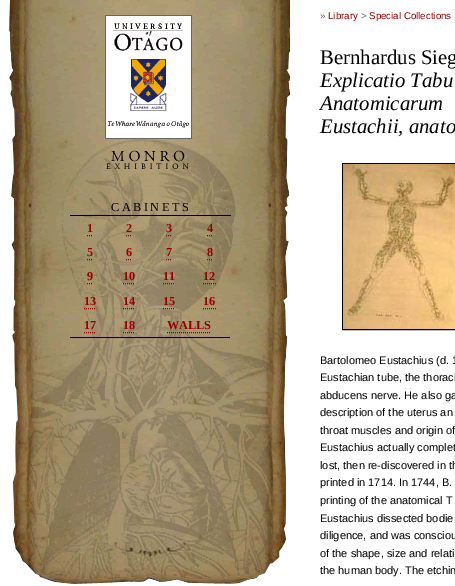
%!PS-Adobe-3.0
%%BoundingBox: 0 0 455 586
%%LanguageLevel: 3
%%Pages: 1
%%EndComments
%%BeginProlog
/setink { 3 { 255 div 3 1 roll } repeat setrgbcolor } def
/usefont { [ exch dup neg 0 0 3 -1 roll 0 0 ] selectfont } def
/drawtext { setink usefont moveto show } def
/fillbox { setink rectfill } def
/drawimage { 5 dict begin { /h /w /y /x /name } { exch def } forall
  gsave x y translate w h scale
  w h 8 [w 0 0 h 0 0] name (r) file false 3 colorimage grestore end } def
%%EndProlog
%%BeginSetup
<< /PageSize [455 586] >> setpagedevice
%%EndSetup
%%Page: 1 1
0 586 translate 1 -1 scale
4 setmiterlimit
0 0 455 586 255 255 255 fillbox
(assets/img1.rgb) 0 0 290 584 drawimage
70 337 160 1 0 0 0 fillbox
70 215 161 1 0 0 0 fillbox
/LiberationSerif-Regular 12.25 usefont
111 211 moveto 2.5 0 (CABINETS) ashow
(1) 87 232 /LiberationSerif-Bold 12.25 152 0 0 drawtext
87 235.5 moveto 88 235.5 lineto 89 235.5 moveto 90 235.5 lineto 91 235.5 moveto 92 235.5 lineto stroke
(2) 126 232 /LiberationSerif-Bold 12.25 152 0 0 drawtext
126 235.5 moveto 127 235.5 lineto 128 235.5 moveto 129 235.5 lineto 130 235.5 moveto 131 235.5 lineto stroke
(3) 166 232 /LiberationSerif-Bold 12.25 152 0 0 drawtext
166 235.5 moveto 167 235.5 lineto 168 235.5 moveto 169 235.5 lineto 170 235.5 moveto 171 235.5 lineto stroke
(4) 207 232 /LiberationSerif-Bold 12.25 152 0 0 drawtext
207 235.5 moveto 208 235.5 lineto 209 235.5 moveto 210 235.5 lineto 211 235.5 moveto 212 235.5 lineto stroke
(5) 87 256 /LiberationSerif-Bold 12.25 152 0 0 drawtext
87 259.5 moveto 88 259.5 lineto 89 259.5 moveto 90 259.5 lineto 91 259.5 moveto 92 259.5 lineto stroke
(6) 126 256 /LiberationSerif-Bold 12.25 152 0 0 drawtext
126 259.5 moveto 127 259.5 lineto 128 259.5 moveto 129 259.5 lineto 130 259.5 moveto 131 259.5 lineto stroke
(7) 166 256 /LiberationSerif-Bold 12.25 152 0 0 drawtext
166 259.5 moveto 167 259.5 lineto 168 259.5 moveto 169 259.5 lineto 170 259.5 moveto 171 259.5 lineto stroke
(8) 207 256 /LiberationSerif-Bold 12.25 152 0 0 drawtext
207 259.5 moveto 208 259.5 lineto 209 259.5 moveto 210 259.5 lineto 211 259.5 moveto 212 259.5 lineto stroke
(9) 87 280 /LiberationSerif-Bold 12.25 152 0 0 drawtext
87 283.5 moveto 88 283.5 lineto 89 283.5 moveto 90 283.5 lineto 91 283.5 moveto 92 283.5 lineto stroke
(10) 123 280 /LiberationSerif-Bold 12.25 152 0 0 drawtext
[1 1] 0 setdash
123 283.5 moveto 135 283.5 lineto stroke
(11) 163 280 /LiberationSerif-Bold 12.25 152 0 0 drawtext
163 283.5 moveto 175 283.5 lineto stroke
(12) 203 280 /LiberationSerif-Bold 12.25 152 0 0 drawtext
203 283.5 moveto 216 283.5 lineto stroke
(13) 84 305 /LiberationSerif-Bold 12.25 152 0 0 drawtext
84 308.5 moveto 96 308.5 lineto stroke
(14) 123 305 /LiberationSerif-Bold 12.25 152 0 0 drawtext
123 308.5 moveto 135 308.5 lineto stroke
(15) 163 305 /LiberationSerif-Bold 12.25 152 0 0 drawtext
163 308.5 moveto 175 308.5 lineto stroke
(16) 203 305 /LiberationSerif-Bold 12.25 152 0 0 drawtext
203 308.5 moveto 216 308.5 lineto stroke
(17) 84 329 /LiberationSerif-Bold 12.25 152 0 0 drawtext
84 332.5 moveto 96 332.5 lineto stroke
(18) 123 329 /LiberationSerif-Bold 12.25 152 0 0 drawtext
123 332.5 moveto 135 332.5 lineto stroke
(WALLS) 167 329 /LiberationSerif-Bold 12.25 152 0 0 drawtext
167 332.5 moveto 211 332.5 lineto stroke
(») 320 19 /LiberationSans-Regular 9.75 102 102 102 drawtext
(Library) 328 19 /LiberationSans-Regular 9.75 152 0 0 drawtext
(>) 361 19 /LiberationSans-Regular 9.75 102 102 102 drawtext
(Special Collections) 369 19 /LiberationSans-Regular 9.75 152 0 0 drawtext
(Bernhardus Sieg) 320 64 /LiberationSerif-Regular 20.75 0 0 0 drawtext
(Explicatio Tabu) 320 87 /LiberationSerif-Italic 20.75 0 0 0 drawtext
(Anatomicarum) 320 110 /LiberationSerif-Italic 20.75 0 0 0 drawtext
(Eustachii, anato) 320 133 /LiberationSerif-Italic 20.75 0 0 0 drawtext
[] 0 setdash
342.5 163.5 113 166 rectstroke
(assets/img2.rgb) 343 164 112 165 drawimage
(Bartolomeo Eustachius \(d. 1) 320 364 /LiberationSans-Regular 11 0 0 0 drawtext
(Eustachian tube, the thoraci) 320 381 /LiberationSans-Regular 11 0 0 0 drawtext
(abducens nerve. He also ga) 320 399 /LiberationSans-Regular 11 0 0 0 drawtext
(description of the uterus an) 320 416 /LiberationSans-Regular 11 0 0 0 drawtext
(throat muscles and origin of) 320 434 /LiberationSans-Regular 11 0 0 0 drawtext
(Eustachius actually complet) 320 451 /LiberationSans-Regular 11 0 0 0 drawtext
(lost, then re-discovered in th) 320 469 /LiberationSans-Regular 11 0 0 0 drawtext
(printed in 1714. In 1744, B.) 320 486 /LiberationSans-Regular 11 0 0 0 drawtext
(printing of the anatomical T) 320 504 /LiberationSans-Regular 11 0 0 0 drawtext
(Eustachius dissected bodie) 320 522 /LiberationSans-Regular 11 0 0 0 drawtext
(diligence, and was consciou) 320 539 /LiberationSans-Regular 11 0 0 0 drawtext
(of the shape, size and relati) 320 557 /LiberationSans-Regular 11 0 0 0 drawtext
(the human body. The etchin) 320 574 /LiberationSans-Regular 11 0 0 0 drawtext
showpage
%%EOF
